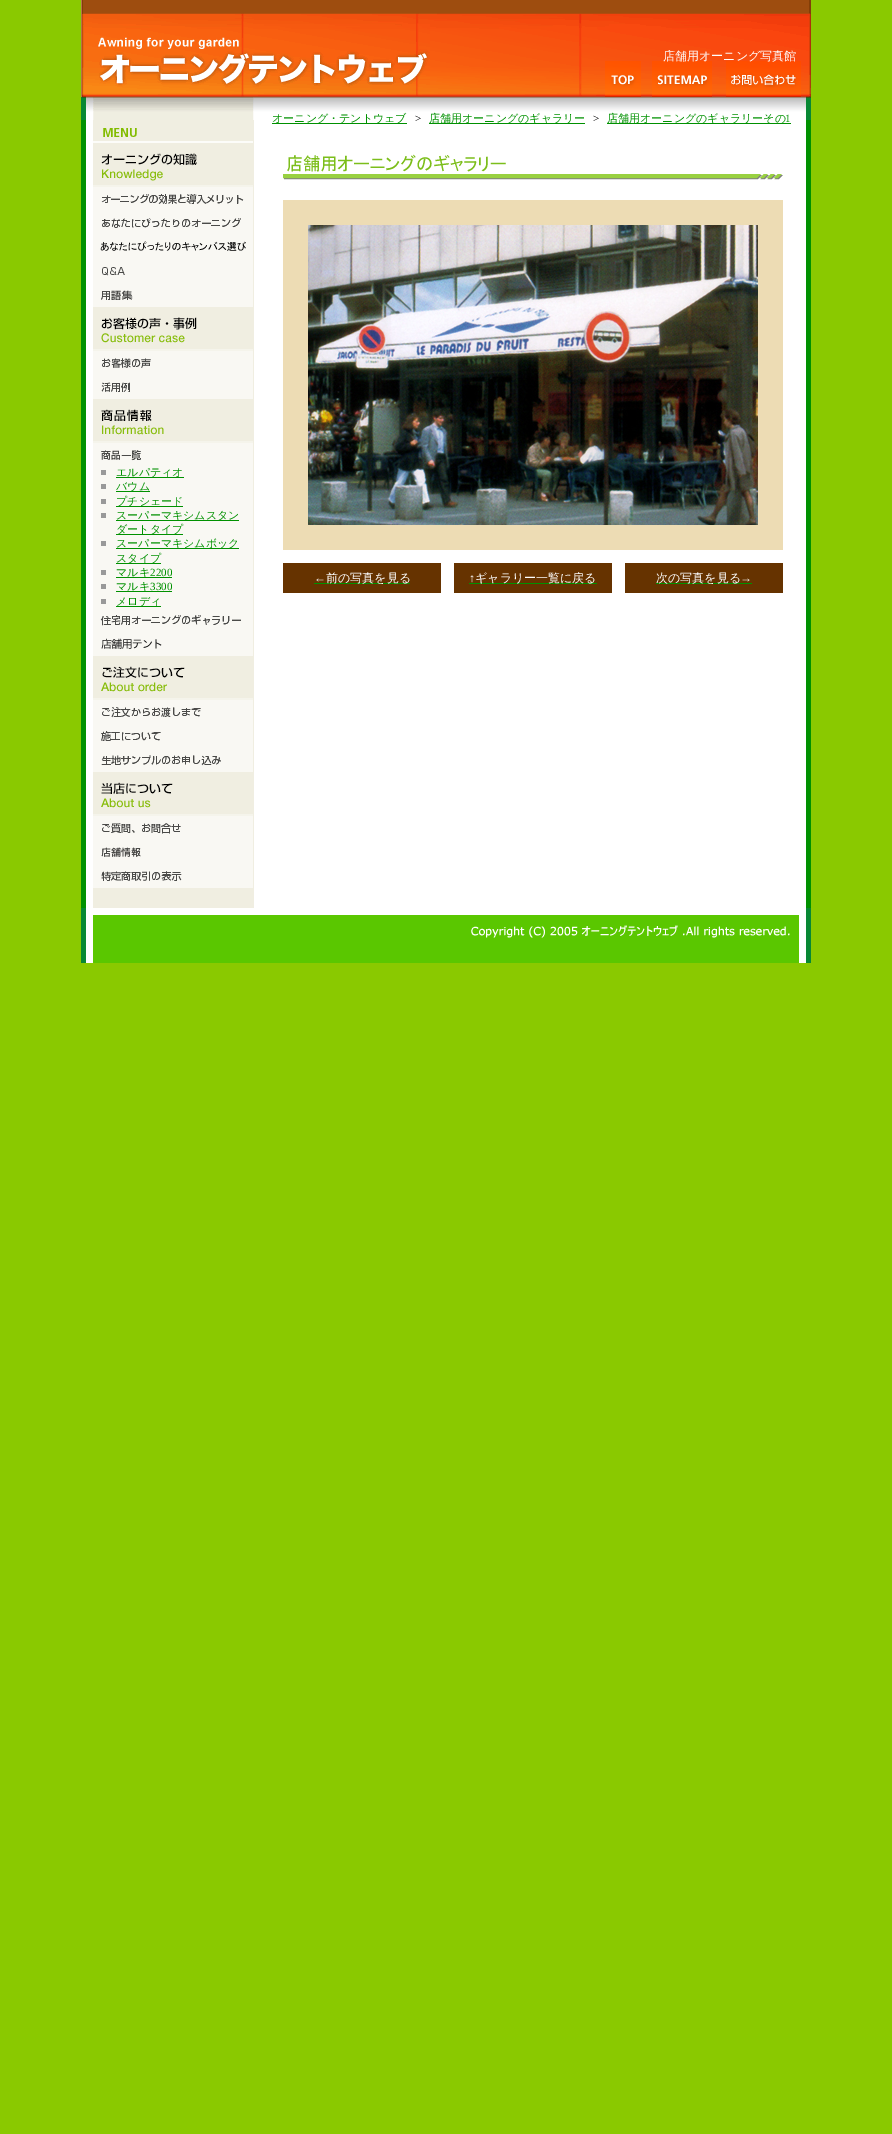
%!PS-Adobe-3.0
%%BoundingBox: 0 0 892 2134
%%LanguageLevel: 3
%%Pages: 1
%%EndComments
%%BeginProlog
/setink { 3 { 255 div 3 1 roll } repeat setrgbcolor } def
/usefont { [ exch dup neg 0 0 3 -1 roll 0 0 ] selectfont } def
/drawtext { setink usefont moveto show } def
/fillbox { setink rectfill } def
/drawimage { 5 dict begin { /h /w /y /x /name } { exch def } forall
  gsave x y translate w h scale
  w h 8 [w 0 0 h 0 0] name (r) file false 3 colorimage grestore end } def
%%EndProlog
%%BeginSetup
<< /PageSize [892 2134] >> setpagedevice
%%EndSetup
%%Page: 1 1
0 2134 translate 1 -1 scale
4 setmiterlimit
0 0 892 2134 138 201 0 fillbox
(assets/img1.rgb) 81 0 730 120 drawimage
(assets/img2.rgb) 82 24 348 73 drawimage
(assets/img5.rgb) 652 61 60 36 drawimage
(assets/img7.rgb) 726 61 75 36 drawimage
(店舗用オーニング写真館) 663 60 /WenQuanYiZenHei-Medium 12 255 255 255 drawtext
(assets/img3.rgb) 605 61 36 36 drawimage
(assets/img4.rgb) 611 75 23 10 drawimage
(assets/img6.rgb) 657 75 50 10 drawimage
(assets/img8.rgb) 731 74 65 13 drawimage
(assets/img9.rgb) 81 120 730 788 drawimage
272 123 135 1 0 145 0 fillbox
(オーニング・テントウェブ) 272 122 /WenQuanYiZenHei-Medium 11 0 145 0 drawtext
(>) 415 122 /LiberationSerif-Regular 11 0 0 0 drawtext
429 123 156 1 0 145 0 fillbox
(店舗用オーニングのギャラリー) 429 122 /WenQuanYiZenHei-Medium 11 0 145 0 drawtext
(>) 593 122 /LiberationSerif-Regular 11 0 0 0 drawtext
607 123 184 1 0 145 0 fillbox
(店舗用オーニングのギャラリーその) 607 122 /WenQuanYiZenHei-Medium 11 0 145 0 drawtext
(1) 785 122 /LiberationSerif-Regular 11 0 145 0 drawtext
253 120 1 788 240 238 225 fillbox
(assets/img10.rgb) 93 128 160 15 drawimage
(assets/img11.rgb) 93 153 160 34 drawimage
(assets/img12.rgb) 93 187 160 24 drawimage
(assets/img13.rgb) 93 211 160 24 drawimage
(assets/img14.rgb) 93 235 160 24 drawimage
(assets/img15.rgb) 93 259 160 24 drawimage
(assets/img16.rgb) 93 283 160 24 drawimage
(assets/img17.rgb) 93 317 160 34 drawimage
(assets/img18.rgb) 93 351 160 24 drawimage
(assets/img19.rgb) 93 375 160 24 drawimage
(assets/img20.rgb) 93 409 160 34 drawimage
93 443 160 165 249 248 243 fillbox
(assets/img21.rgb) 101 450 40 11 drawimage
101 470 5 5 153 153 153 fillbox
116 477 68 1 0 145 0 fillbox
(エルパティオ) 116 476 /WenQuanYiZenHei-Medium 11 0 145 0 drawtext
101 484 5 5 153 153 153 fillbox
116 491 34 1 0 145 0 fillbox
(バウム) 116 490 /WenQuanYiZenHei-Medium 11 0 145 0 drawtext
101 499 5 5 153 153 153 fillbox
116 506 67 1 0 145 0 fillbox
(プチシェード) 116 505 /WenQuanYiZenHei-Medium 11 0 145 0 drawtext
101 513 5 5 153 153 153 fillbox
116 520 123 1 0 145 0 fillbox
(スーパーマキシムスタン) 116 519 /WenQuanYiZenHei-Medium 11 0 145 0 drawtext
116 534 67 1 0 145 0 fillbox
(ダートタイプ) 116 533 /WenQuanYiZenHei-Medium 11 0 145 0 drawtext
101 541 5 5 153 153 153 fillbox
116 548 123 1 0 145 0 fillbox
(スーパーマキシムボック) 116 547 /WenQuanYiZenHei-Medium 11 0 145 0 drawtext
116 563 45 1 0 145 0 fillbox
(スタイプ) 116 562 /WenQuanYiZenHei-Medium 11 0 145 0 drawtext
101 570 5 5 153 153 153 fillbox
116 577 56 1 0 145 0 fillbox
(マルキ) 116 576 /WenQuanYiZenHei-Medium 11 0 145 0 drawtext
(2200) 150 576 /LiberationSerif-Regular 11 0 145 0 drawtext
101 584 5 5 153 153 153 fillbox
116 591 56 1 0 145 0 fillbox
(マルキ) 116 590 /WenQuanYiZenHei-Medium 11 0 145 0 drawtext
(3300) 150 590 /LiberationSerif-Regular 11 0 145 0 drawtext
101 599 5 5 153 153 153 fillbox
116 606 45 1 0 145 0 fillbox
(メロディ) 116 605 /WenQuanYiZenHei-Medium 11 0 145 0 drawtext
(assets/img22.rgb) 93 608 160 24 drawimage
(assets/img23.rgb) 93 632 160 24 drawimage
(assets/img24.rgb) 93 666 160 34 drawimage
(assets/img25.rgb) 93 700 160 24 drawimage
(assets/img26.rgb) 93 724 160 24 drawimage
(assets/img27.rgb) 93 748 160 24 drawimage
(assets/img28.rgb) 93 782 160 34 drawimage
(assets/img29.rgb) 93 816 160 24 drawimage
(assets/img30.rgb) 93 840 160 24 drawimage
(assets/img31.rgb) 93 864 160 24 drawimage
(assets/img32.rgb) 283 154 500 26 drawimage
283 200 500 350 237 220 180 fillbox
(assets/img33.rgb) 308 225 450 300 drawimage
283 563 158 30 102 51 0 fillbox
(←) 314 582 /LiberationSerif-Regular 12 255 255 255 drawtext
314 583 96 1 0 145 0 fillbox
(前の写真を見る) 326 582 /WenQuanYiZenHei-Medium 12 255 255 255 drawtext
454 563 158 30 102 51 0 fillbox
(↑) 469 582 /LiberationSerif-Regular 12 255 255 255 drawtext
469 583 128 1 0 145 0 fillbox
(ギャラリー一覧に戻る) 475 582 /WenQuanYiZenHei-Medium 12 255 255 255 drawtext
625 563 158 30 102 51 0 fillbox
656 583 96 1 0 145 0 fillbox
(次の写真を見る) 656 582 /WenQuanYiZenHei-Medium 12 255 255 255 drawtext
(→) 740 582 /LiberationSerif-Regular 12 255 255 255 drawtext
(assets/img34.rgb) 81 908 730 55 drawimage
showpage
%%EOF
